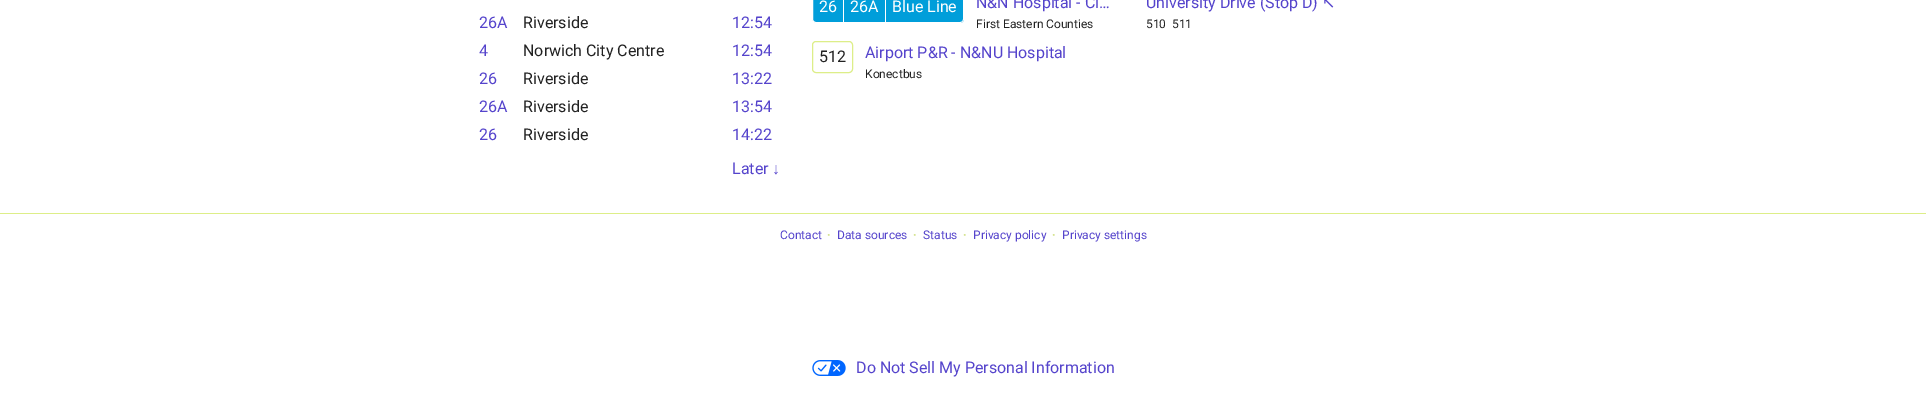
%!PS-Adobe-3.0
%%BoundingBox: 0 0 1926 404
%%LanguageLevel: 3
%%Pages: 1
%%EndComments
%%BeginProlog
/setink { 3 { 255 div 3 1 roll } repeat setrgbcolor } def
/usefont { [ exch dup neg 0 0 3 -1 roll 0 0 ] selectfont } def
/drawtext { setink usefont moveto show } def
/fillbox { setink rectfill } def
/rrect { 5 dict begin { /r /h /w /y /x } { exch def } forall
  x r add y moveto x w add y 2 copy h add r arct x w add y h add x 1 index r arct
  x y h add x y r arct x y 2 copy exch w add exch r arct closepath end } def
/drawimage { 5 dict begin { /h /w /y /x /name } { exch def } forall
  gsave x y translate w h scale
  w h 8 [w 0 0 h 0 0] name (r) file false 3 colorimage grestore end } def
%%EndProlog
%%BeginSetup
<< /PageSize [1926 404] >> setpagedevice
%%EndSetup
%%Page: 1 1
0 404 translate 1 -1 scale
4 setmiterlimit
0 0 1926 404 255 255 255 fillbox
(26A) 479 28 /Roboto-Regular 16 85 68 204 drawtext
(Riverside) 523 28 /Roboto-Regular 16 34 34 34 drawtext
(12:54) 732 28 /Roboto-Regular 16 85 68 204 drawtext
(4) 479 56 /Roboto-Regular 16 85 68 204 drawtext
(Norwich City Centre) 523 56 /Roboto-Regular 16 34 34 34 drawtext
(12:54) 732 56 /Roboto-Regular 16 85 68 204 drawtext
(26) 479 84 /Roboto-Regular 16 85 68 204 drawtext
(Riverside) 523 84 /Roboto-Regular 16 34 34 34 drawtext
(13:22) 732 84 /Roboto-Regular 16 85 68 204 drawtext
(26A) 479 112 /Roboto-Regular 16 85 68 204 drawtext
(Riverside) 523 112 /Roboto-Regular 16 34 34 34 drawtext
(13:54) 732 112 /Roboto-Regular 16 85 68 204 drawtext
(26) 479 140 /Roboto-Regular 16 85 68 204 drawtext
(Riverside) 523 140 /Roboto-Regular 16 34 34 34 drawtext
(14:22) 732 140 /Roboto-Regular 16 85 68 204 drawtext
(Later) 732 174 /Roboto-Regular 16 85 68 204 drawtext
(↓) 772 174 /LiberationSans-Regular 16 85 68 204 drawtext
0 158 218 setink
816 -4.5 moveto 843.5 -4.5 lineto 843.5 22.5 lineto 816 22.5 lineto 814 22.5 812.5 21 812.5 19 curveto 812.5 -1 lineto 812.5 -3 814 -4.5 816 -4.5 curveto closepath gsave fill grestore
255 255 255 setink
stroke
(26) 819 12 /Roboto-Regular 16 255 255 255 drawtext
844 0 41 22 0 158 218 fillbox
(26A) 850 12 /Roboto-Regular 16 255 255 255 drawtext
0 158 218 setink
886 -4 moveto 960 -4 lineto 962 -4 964 -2 964 0 curveto 964 19 lineto 964 21 962 23 960 23 curveto 886 23 lineto closepath fill
255 255 255 setink
886 -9 moveto 960 -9 lineto 962 -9 964 -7 964 -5 curveto 964 19 lineto 964 21 962 23 960 23 curveto 886 23 lineto closepath 886 -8 moveto 960 -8 lineto 962 -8 963 -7 963 -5 curveto 963 19 lineto 963 21 962 22 960 22 curveto 886 22 lineto closepath eofill
(Blue Line) 892 12 /Roboto-Regular 16 255 255 255 drawtext
(N&N Hospital - Ci…) 976 8 /Roboto-Regular 16 85 68 204 drawtext
(First Eastern Counties) 976 28 /Roboto-Regular 12 34 34 34 drawtext
221 238 136 setink
812.5 41.5 40 31 3.5 rrect stroke
(512) 819 62 /Roboto-Regular 16 34 34 34 drawtext
(Airport P&R - N&NU Hospital) 865 58 /Roboto-Regular 16 85 68 204 drawtext
(Konectbus) 865 78 /Roboto-Regular 12 34 34 34 drawtext
(University Drive \(Stop D\)) 1146 8 /Roboto-Regular 16 85 68 204 drawtext
(↖) 1322 8 /DejaVuSans-Regular 16 85 68 204 drawtext
(510) 1146 28 /Roboto-Regular 12 34 34 34 drawtext
(511) 1172 28 /Roboto-Regular 12 34 34 34 drawtext
0 213 1926 1 221 238 136 fillbox
(Contact) 780 239 /Roboto-Regular 12 85 68 204 drawtext
(·) 827 239 /Roboto-Bold 12 204 221 119 drawtext
(Data sources) 837 239 /Roboto-Regular 12 85 68 204 drawtext
(·) 913 239 /Roboto-Bold 12 204 221 119 drawtext
(Status) 923 239 /Roboto-Regular 12 85 68 204 drawtext
(·) 963 239 /Roboto-Bold 12 204 221 119 drawtext
(Privacy policy) 973 239 /Roboto-Regular 12 85 68 204 drawtext
(·) 1052 239 /Roboto-Bold 12 204 221 119 drawtext
(Privacy settings) 1062 239 /Roboto-Regular 12 85 68 204 drawtext
(assets/img1.rgb) 812 360 34 16 drawimage
(Do Not Sell My Personal Information) 856 373 /Roboto-Regular 16 85 68 204 drawtext
showpage
%%EOF
